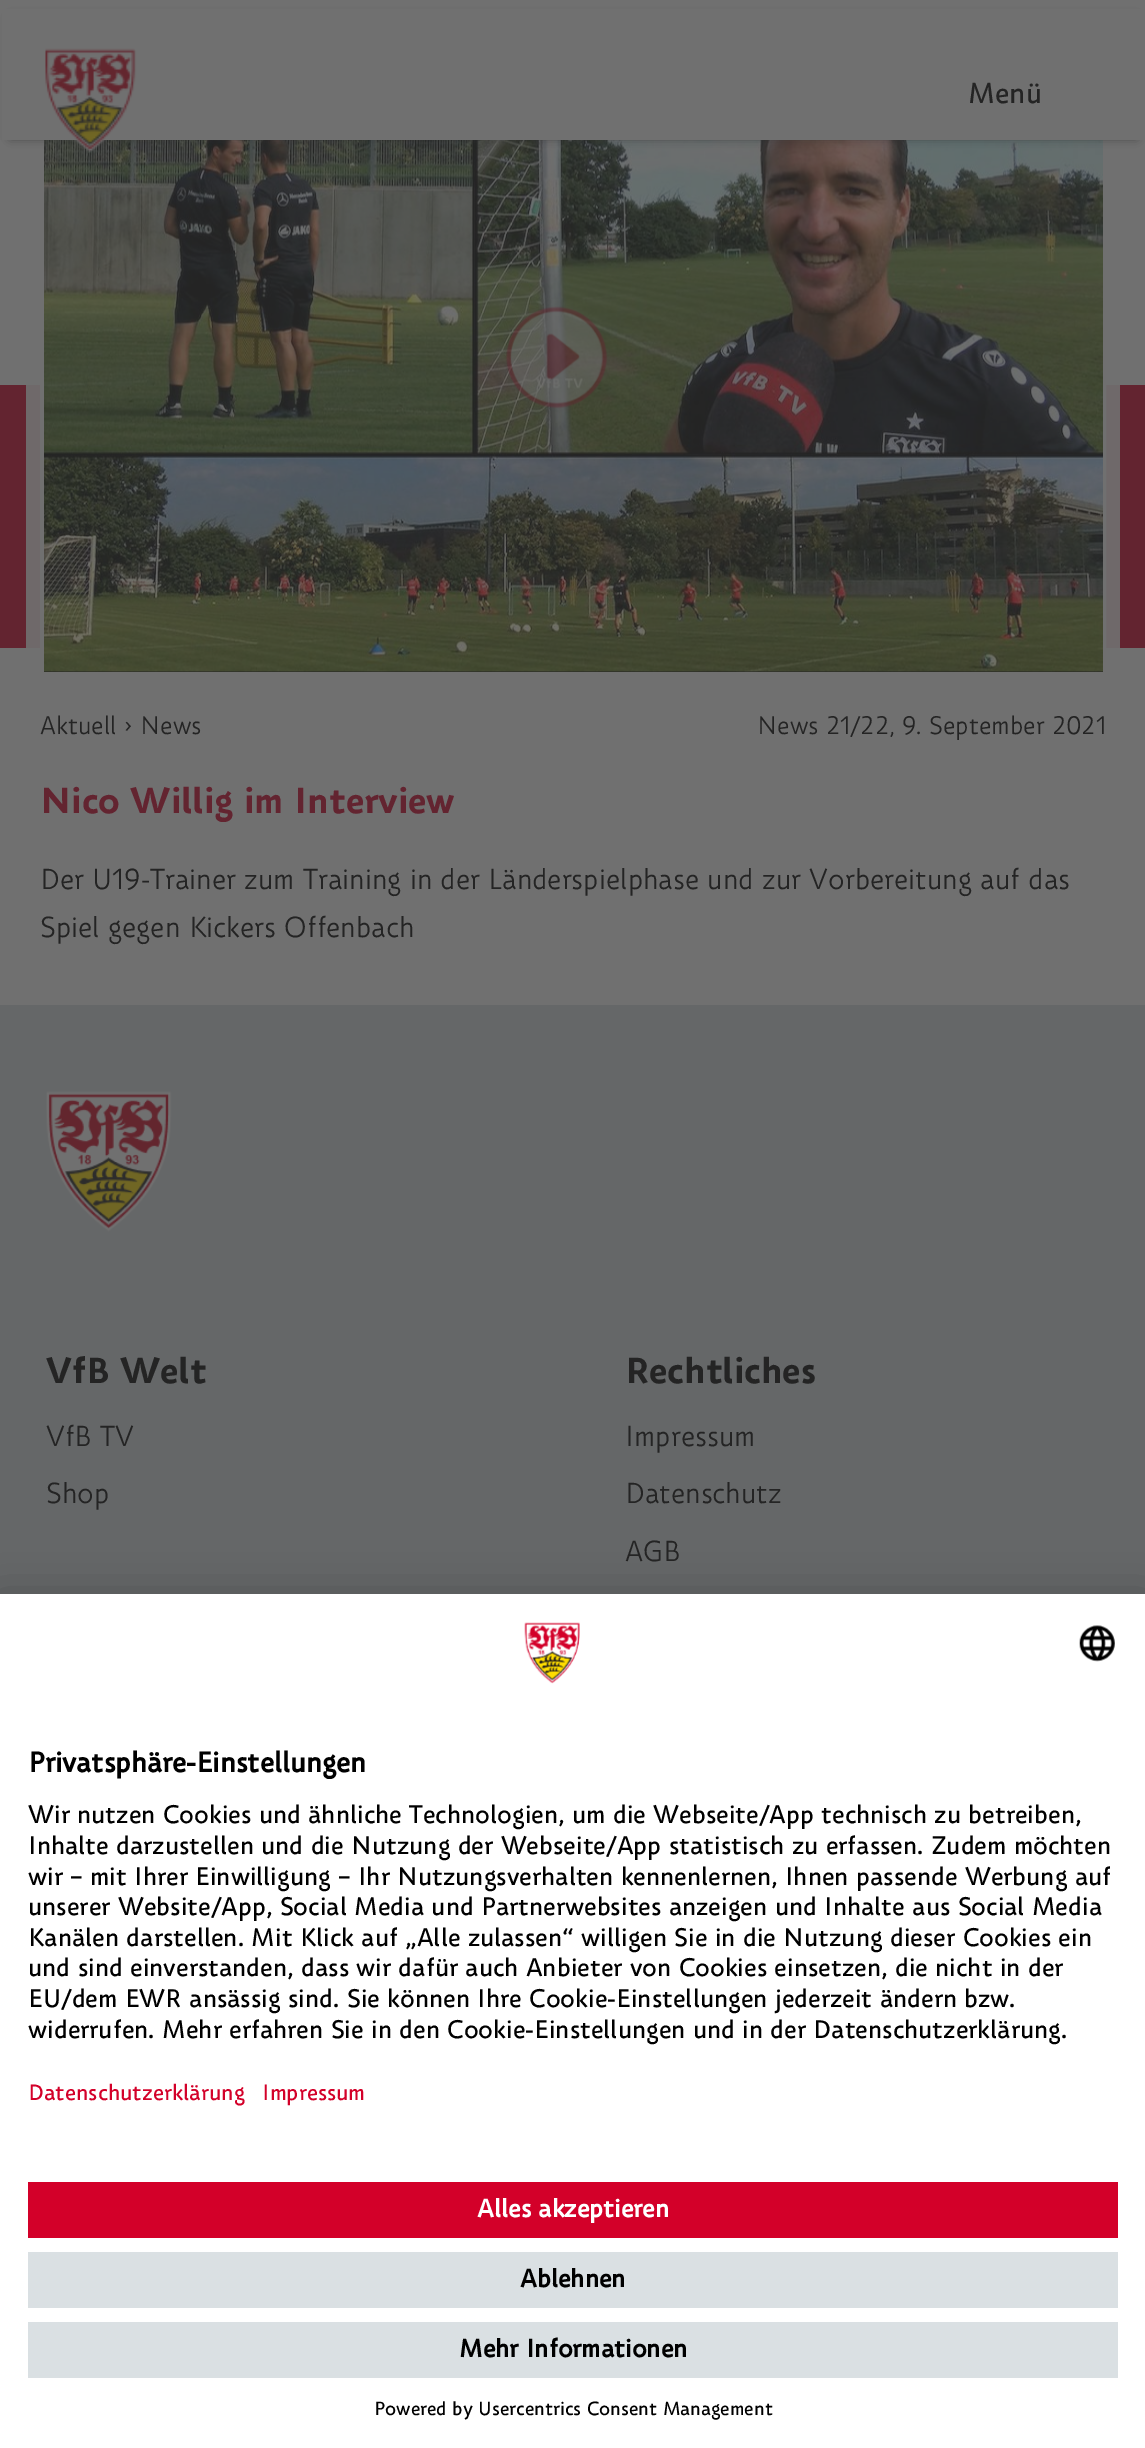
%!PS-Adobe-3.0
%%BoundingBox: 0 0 1145 2448
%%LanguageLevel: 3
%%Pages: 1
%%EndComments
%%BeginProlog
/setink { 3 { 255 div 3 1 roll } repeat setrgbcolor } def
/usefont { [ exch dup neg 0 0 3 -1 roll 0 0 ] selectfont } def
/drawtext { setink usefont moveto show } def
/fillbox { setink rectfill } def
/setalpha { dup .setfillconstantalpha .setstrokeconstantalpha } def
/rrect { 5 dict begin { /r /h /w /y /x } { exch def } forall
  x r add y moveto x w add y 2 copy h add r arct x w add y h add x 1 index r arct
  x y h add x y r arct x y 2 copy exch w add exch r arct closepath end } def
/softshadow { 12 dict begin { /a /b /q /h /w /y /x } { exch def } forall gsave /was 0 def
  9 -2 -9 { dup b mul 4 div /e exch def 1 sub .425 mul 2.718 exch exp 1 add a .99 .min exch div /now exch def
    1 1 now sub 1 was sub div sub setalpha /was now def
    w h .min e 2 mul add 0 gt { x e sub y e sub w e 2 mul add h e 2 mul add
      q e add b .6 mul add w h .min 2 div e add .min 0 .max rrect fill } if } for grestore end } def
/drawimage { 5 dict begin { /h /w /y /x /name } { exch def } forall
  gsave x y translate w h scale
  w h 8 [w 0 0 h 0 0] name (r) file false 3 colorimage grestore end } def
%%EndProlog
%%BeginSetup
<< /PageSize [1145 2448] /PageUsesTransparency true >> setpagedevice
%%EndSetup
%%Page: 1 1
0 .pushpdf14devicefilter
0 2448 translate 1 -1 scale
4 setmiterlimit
0 0 1145 2448 112 112 112 fillbox
0 385 1145 263 99 36 48 fillbox
26 385 1094 263 111 105 106 fillbox
112 112 112 setink
4 setlinewidth
42 77 1062 597 rectstroke
44 671 1059 1 36 36 36 fillbox
(assets/img1.rgb) 44 140 1059 532 drawimage
(assets/img2.rgb) 505 306 103 103 drawimage
46 46 46 setink
11 18 1125 119 0 5 1 softshadow
2 9 1143 131 112 112 112 fillbox
(assets/img3.rgb) 45 48 92 105 drawimage
(Menü) 968 103 /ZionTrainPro-Regular 28 36 36 36 drawtext
(Aktuell › News) 40 734 /ZionTrainPro-Light 24.5 36 36 36 drawtext
(News 21/22, 9. September 2021) 757 734 /ZionTrainPro-Light 24.5 36 36 36 drawtext
(Nico Willig im Interview) 40 813 /ZionTrainPro-Bold 35 99 36 48 drawtext
(Der U19-Trainer zum Training in der Länderspielphase und zur Vorbereitung auf das) 40 889 /ZionTrainPro-Light 28 36 36 36 drawtext
(Spiel gegen Kickers Offenbach) 40 937 /ZionTrainPro-Light 28 36 36 36 drawtext
0 1005 1145 589 101 103 104 fillbox
(assets/img4.rgb) 46 1091 126 141 drawimage
(VfB Welt) 46 1383 /ZionTrainPro-Bold 35 36 36 36 drawtext
(VfB TV) 46 1446 /ZionTrainPro-Light 28 36 36 36 drawtext
(Shop) 46 1503 /ZionTrainPro-Light 28 36 36 36 drawtext
(Rechtliches) 625 1383 /ZionTrainPro-Bold 35 36 36 36 drawtext
(Impressum) 625 1446 /ZionTrainPro-Light 28 36 36 36 drawtext
(Datenschutz) 625 1503 /ZionTrainPro-Light 28 36 36 36 drawtext
(AGB) 625 1561 /ZionTrainPro-Light 28 36 36 36 drawtext
0 0 0 setink
0 1629 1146 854 0 24.5 0.3 softshadow
0 1603 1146 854 0 23 0.22 softshadow
0 1594 1145 854 255 255 255 fillbox
(assets/img5.rgb) 524 1622 56 62 drawimage
(assets/img6.rgb) 1079 1625 36 37 drawimage
(Privatsphäre-Einstellungen) 28 1772 /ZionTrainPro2-Bold 27.5 0 0 0 drawtext
(Wir nutzen Cookies und ähnliche Technologien, um die Webseite/App technisch zu betreiben,) 28 1823 /ZionTrainPro-Regular 24.5 0 0 0 drawtext
(Inhalte darzustellen und die Nutzung der Webseite/App statistisch zu erfassen. Zudem möchten) 28 1854 /ZionTrainPro-Regular 24.5 0 0 0 drawtext
(wir – mit Ihrer Einwilligung – Ihr Nutzungsverhalten kennenlernen, Ihnen passende Werbung auf) 28 1885 /ZionTrainPro-Regular 24.5 0 0 0 drawtext
(unserer Website/App, Social Media und Partnerwebsites anzeigen und Inhalte aus Social Media) 28 1915 /ZionTrainPro-Regular 24.5 0 0 0 drawtext
(Kanälen darstellen. Mit Klick auf „Alle zulassen“ willigen Sie in die Nutzung dieser Cookies ein) 28 1946 /ZionTrainPro-Regular 24.5 0 0 0 drawtext
(und sind einverstanden, dass wir dafür auch Anbieter von Cookies einsetzen, die nicht in der) 28 1976 /ZionTrainPro-Regular 24.5 0 0 0 drawtext
(EU/dem EWR ansässig sind. Sie können Ihre Cookie-Einstellungen jederzeit ändern bzw.) 28 2007 /ZionTrainPro-Regular 24.5 0 0 0 drawtext
(widerrufen. Mehr erfahren Sie in den Cookie-Einstellungen und in der Datenschutzerklärung.) 28 2038 /ZionTrainPro-Regular 24.5 0 0 0 drawtext
(Datenschutzerklärung) 28 2100 /ZionTrainPro-Regular 21.5 211 0 41 drawtext
(Impressum) 262 2100 /ZionTrainPro-Regular 21.5 211 0 41 drawtext
28 2182 1090 56 211 0 41 fillbox
(Alles akzeptieren) 477 2217 /ZionTrainPro2-Bold 24.5 255 255 255 drawtext
28 2252 1090 56 218 224 227 fillbox
(Ablehnen) 520 2287 /ZionTrainPro2-Bold 24.5 0 0 0 drawtext
28 2322 1090 56 218 224 227 fillbox
(Mehr Informationen) 459 2357 /ZionTrainPro2-Bold 24.5 0 0 0 drawtext
(Powered by Usercentrics Consent Management) 374 2415 /ZionTrainPro-Regular 18.4 0 0 0 drawtext
.poppdf14devicefilter showpage
%%EOF
